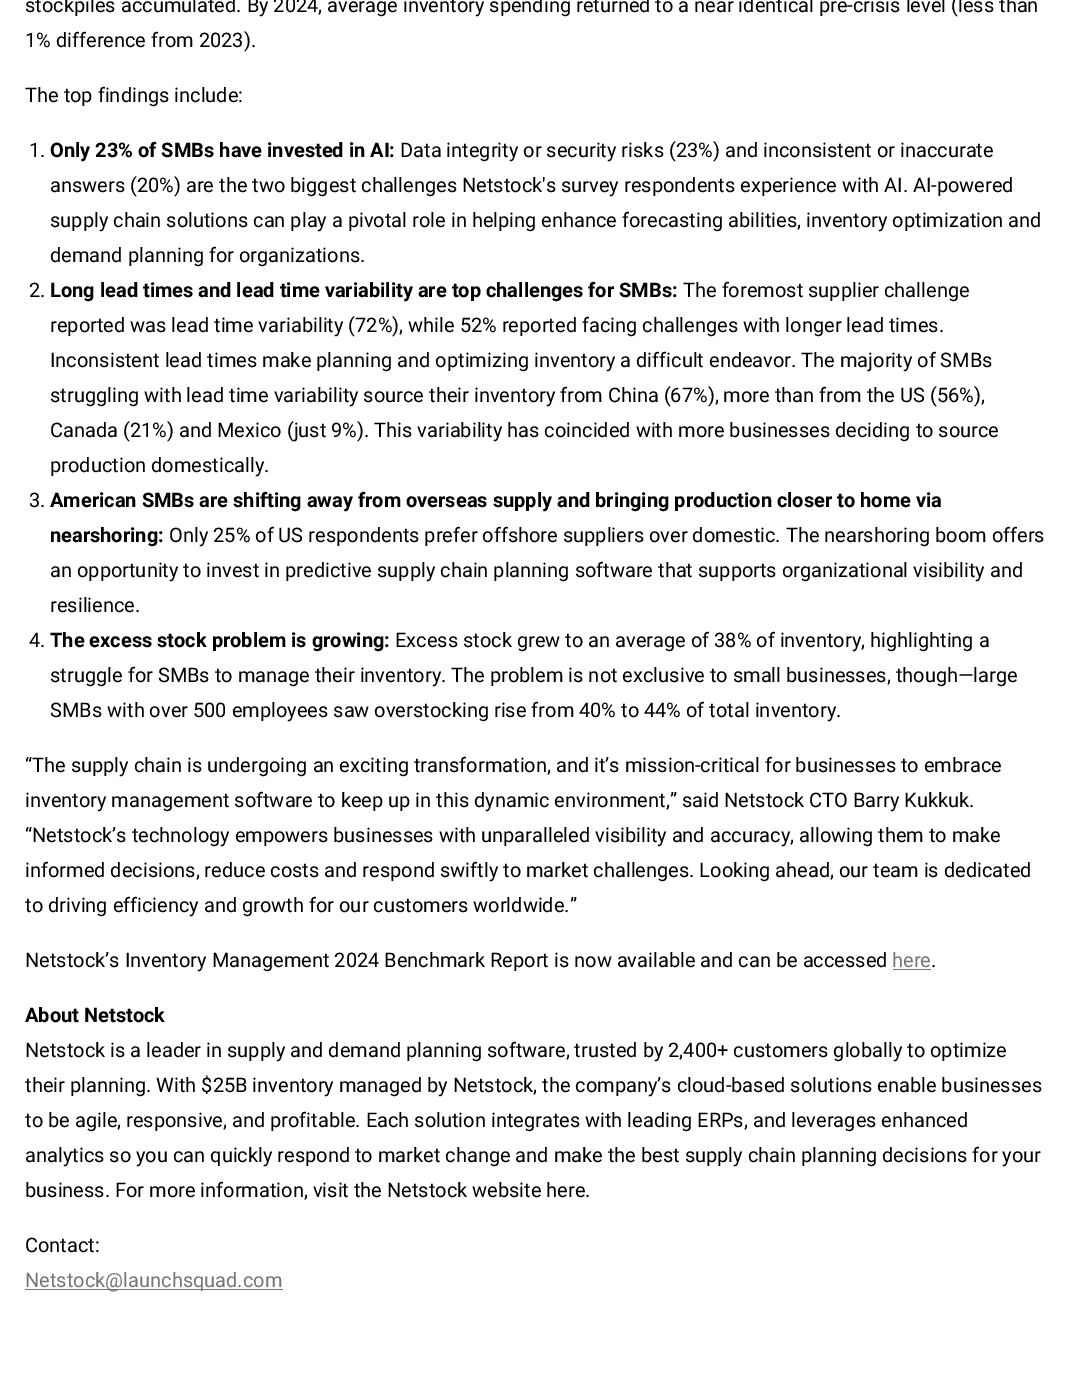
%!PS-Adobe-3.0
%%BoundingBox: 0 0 1071 1382
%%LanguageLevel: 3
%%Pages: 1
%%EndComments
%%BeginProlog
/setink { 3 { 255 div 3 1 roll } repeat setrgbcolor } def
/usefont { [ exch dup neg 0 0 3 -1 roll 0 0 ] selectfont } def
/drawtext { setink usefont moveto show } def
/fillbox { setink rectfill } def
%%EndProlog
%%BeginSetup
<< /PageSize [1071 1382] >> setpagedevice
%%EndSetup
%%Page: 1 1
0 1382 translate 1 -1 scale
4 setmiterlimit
0 0 1071 1382 255 255 255 fillbox
(stockpiles accumulated. By 2024, average inventory spending returned to a near identical pre-crisis level \(less than) 25 12 /Roboto-Regular 20 0 0 0 drawtext
(1% difference from 2023\).) 25 47 /Roboto-Regular 20 0 0 0 drawtext
(The top findings include:) 25 102 /Roboto-Regular 20 0 0 0 drawtext
(1.) 29 157 /Roboto-Regular 20 0 0 0 drawtext
(Only 23% of SMBs have invested in AI:) 50 157 /Roboto-Bold 20 0 0 0 drawtext
(Data integrity or security risks \(23%\) and inconsistent or inaccurate) 400 157 /Roboto-Regular 20 0 0 0 drawtext
(answers \(20%\) are the two biggest challenges Netstock's survey respondents experience with AI. AI-powered) 50 192 /Roboto-Regular 20 0 0 0 drawtext
(supply chain solutions can play a pivotal role in helping enhance forecasting abilities, inventory optimization and) 50 227 /Roboto-Regular 20 0 0 0 drawtext
(demand planning for organizations.) 50 262 /Roboto-Regular 20 0 0 0 drawtext
(2.) 29 297 /Roboto-Regular 20 0 0 0 drawtext
(Long lead times and lead time variability are top challenges for SMBs:) 50 297 /Roboto-Bold 20 0 0 0 drawtext
(The foremost supplier challenge) 683 297 /Roboto-Regular 20 0 0 0 drawtext
(reported was lead time variability \(72%\), while 52% reported facing challenges with longer lead times.) 50 332 /Roboto-Regular 20 0 0 0 drawtext
(Inconsistent lead times make planning and optimizing inventory a difficult endeavor. The majority of SMBs) 50 367 /Roboto-Regular 20 0 0 0 drawtext
(struggling with lead time variability source their inventory from China \(67%\), more than from the US \(56%\),) 50 402 /Roboto-Regular 20 0 0 0 drawtext
(Canada \(21%\) and Mexico \(just 9%\). This variability has coincided with more businesses deciding to source) 50 437 /Roboto-Regular 20 0 0 0 drawtext
(production domestically.) 50 472 /Roboto-Regular 20 0 0 0 drawtext
(3.) 29 507 /Roboto-Regular 20 0 0 0 drawtext
(American SMBs are shifting away from overseas supply and bringing production closer to home via) 50 507 /Roboto-Bold 20 0 0 0 drawtext
(nearshoring:) 50 542 /Roboto-Bold 20 0 0 0 drawtext
(Only 25% of US respondents prefer offshore suppliers over domestic. The nearshoring boom offers) 169 542 /Roboto-Regular 20 0 0 0 drawtext
(an opportunity to invest in predictive supply chain planning software that supports organizational visibility and) 50 577 /Roboto-Regular 20 0 0 0 drawtext
(resilience.) 50 612 /Roboto-Regular 20 0 0 0 drawtext
(4.) 29 647 /Roboto-Regular 20 0 0 0 drawtext
(The excess stock problem is growing:) 50 647 /Roboto-Bold 20 0 0 0 drawtext
(Excess stock grew to an average of 38% of inventory, highlighting a) 395 647 /Roboto-Regular 20 0 0 0 drawtext
(struggle for SMBs to manage their inventory. The problem is not exclusive to small businesses, though—large) 50 682 /Roboto-Regular 20 0 0 0 drawtext
(SMBs with over 500 employees saw overstocking rise from 40% to 44% of total inventory.) 50 717 /Roboto-Regular 20 0 0 0 drawtext
(“The supply chain is undergoing an exciting transformation, and it’s mission-critical for businesses to embrace) 25 772 /Roboto-Regular 20 0 0 0 drawtext
(inventory management software to keep up in this dynamic environment,” said Netstock CTO Barry Kukkuk.) 25 807 /Roboto-Regular 20 0 0 0 drawtext
(“Netstock’s technology empowers businesses with unparalleled visibility and accuracy, allowing them to make) 25 842 /Roboto-Regular 20 0 0 0 drawtext
(informed decisions, reduce costs and respond swiftly to market challenges. Looking ahead, our team is dedicated) 25 877 /Roboto-Regular 20 0 0 0 drawtext
(to driving efficiency and growth for our customers worldwide.”) 25 912 /Roboto-Regular 20 0 0 0 drawtext
(Netstock’s Inventory Management 2024 Benchmark Report is now available and can be accessed) 25 967 /Roboto-Regular 20 0 0 0 drawtext
(here) 892 967 /Roboto-Regular 20 117 117 118 drawtext
893 969 38 1 117 117 118 fillbox
(.) 931 967 /Roboto-Regular 20 0 0 0 drawtext
(About Netstock) 25 1022 /Roboto-Bold 20 0 0 0 drawtext
(Netstock is a leader in supply and demand planning software, trusted by 2,400+ customers globally to optimize) 25 1057 /Roboto-Regular 20 0 0 0 drawtext
(their planning. With $25B inventory managed by Netstock, the company’s cloud-based solutions enable businesses) 25 1092 /Roboto-Regular 20 0 0 0 drawtext
(to be agile, responsive, and profitable. Each solution integrates with leading ERPs, and leverages enhanced) 25 1127 /Roboto-Regular 20 0 0 0 drawtext
(analytics so you can quickly respond to market change and make the best supply chain planning decisions for your) 25 1162 /Roboto-Regular 20 0 0 0 drawtext
(business. For more information, visit the Netstock website here.) 25 1197 /Roboto-Regular 20 0 0 0 drawtext
(Contact:) 25 1252 /Roboto-Regular 20 0 0 0 drawtext
25 1289 258 1 117 117 118 fillbox
(Netstock@launchsquad.com) 25 1287 /Roboto-Regular 20 117 117 118 drawtext
showpage
%%EOF
